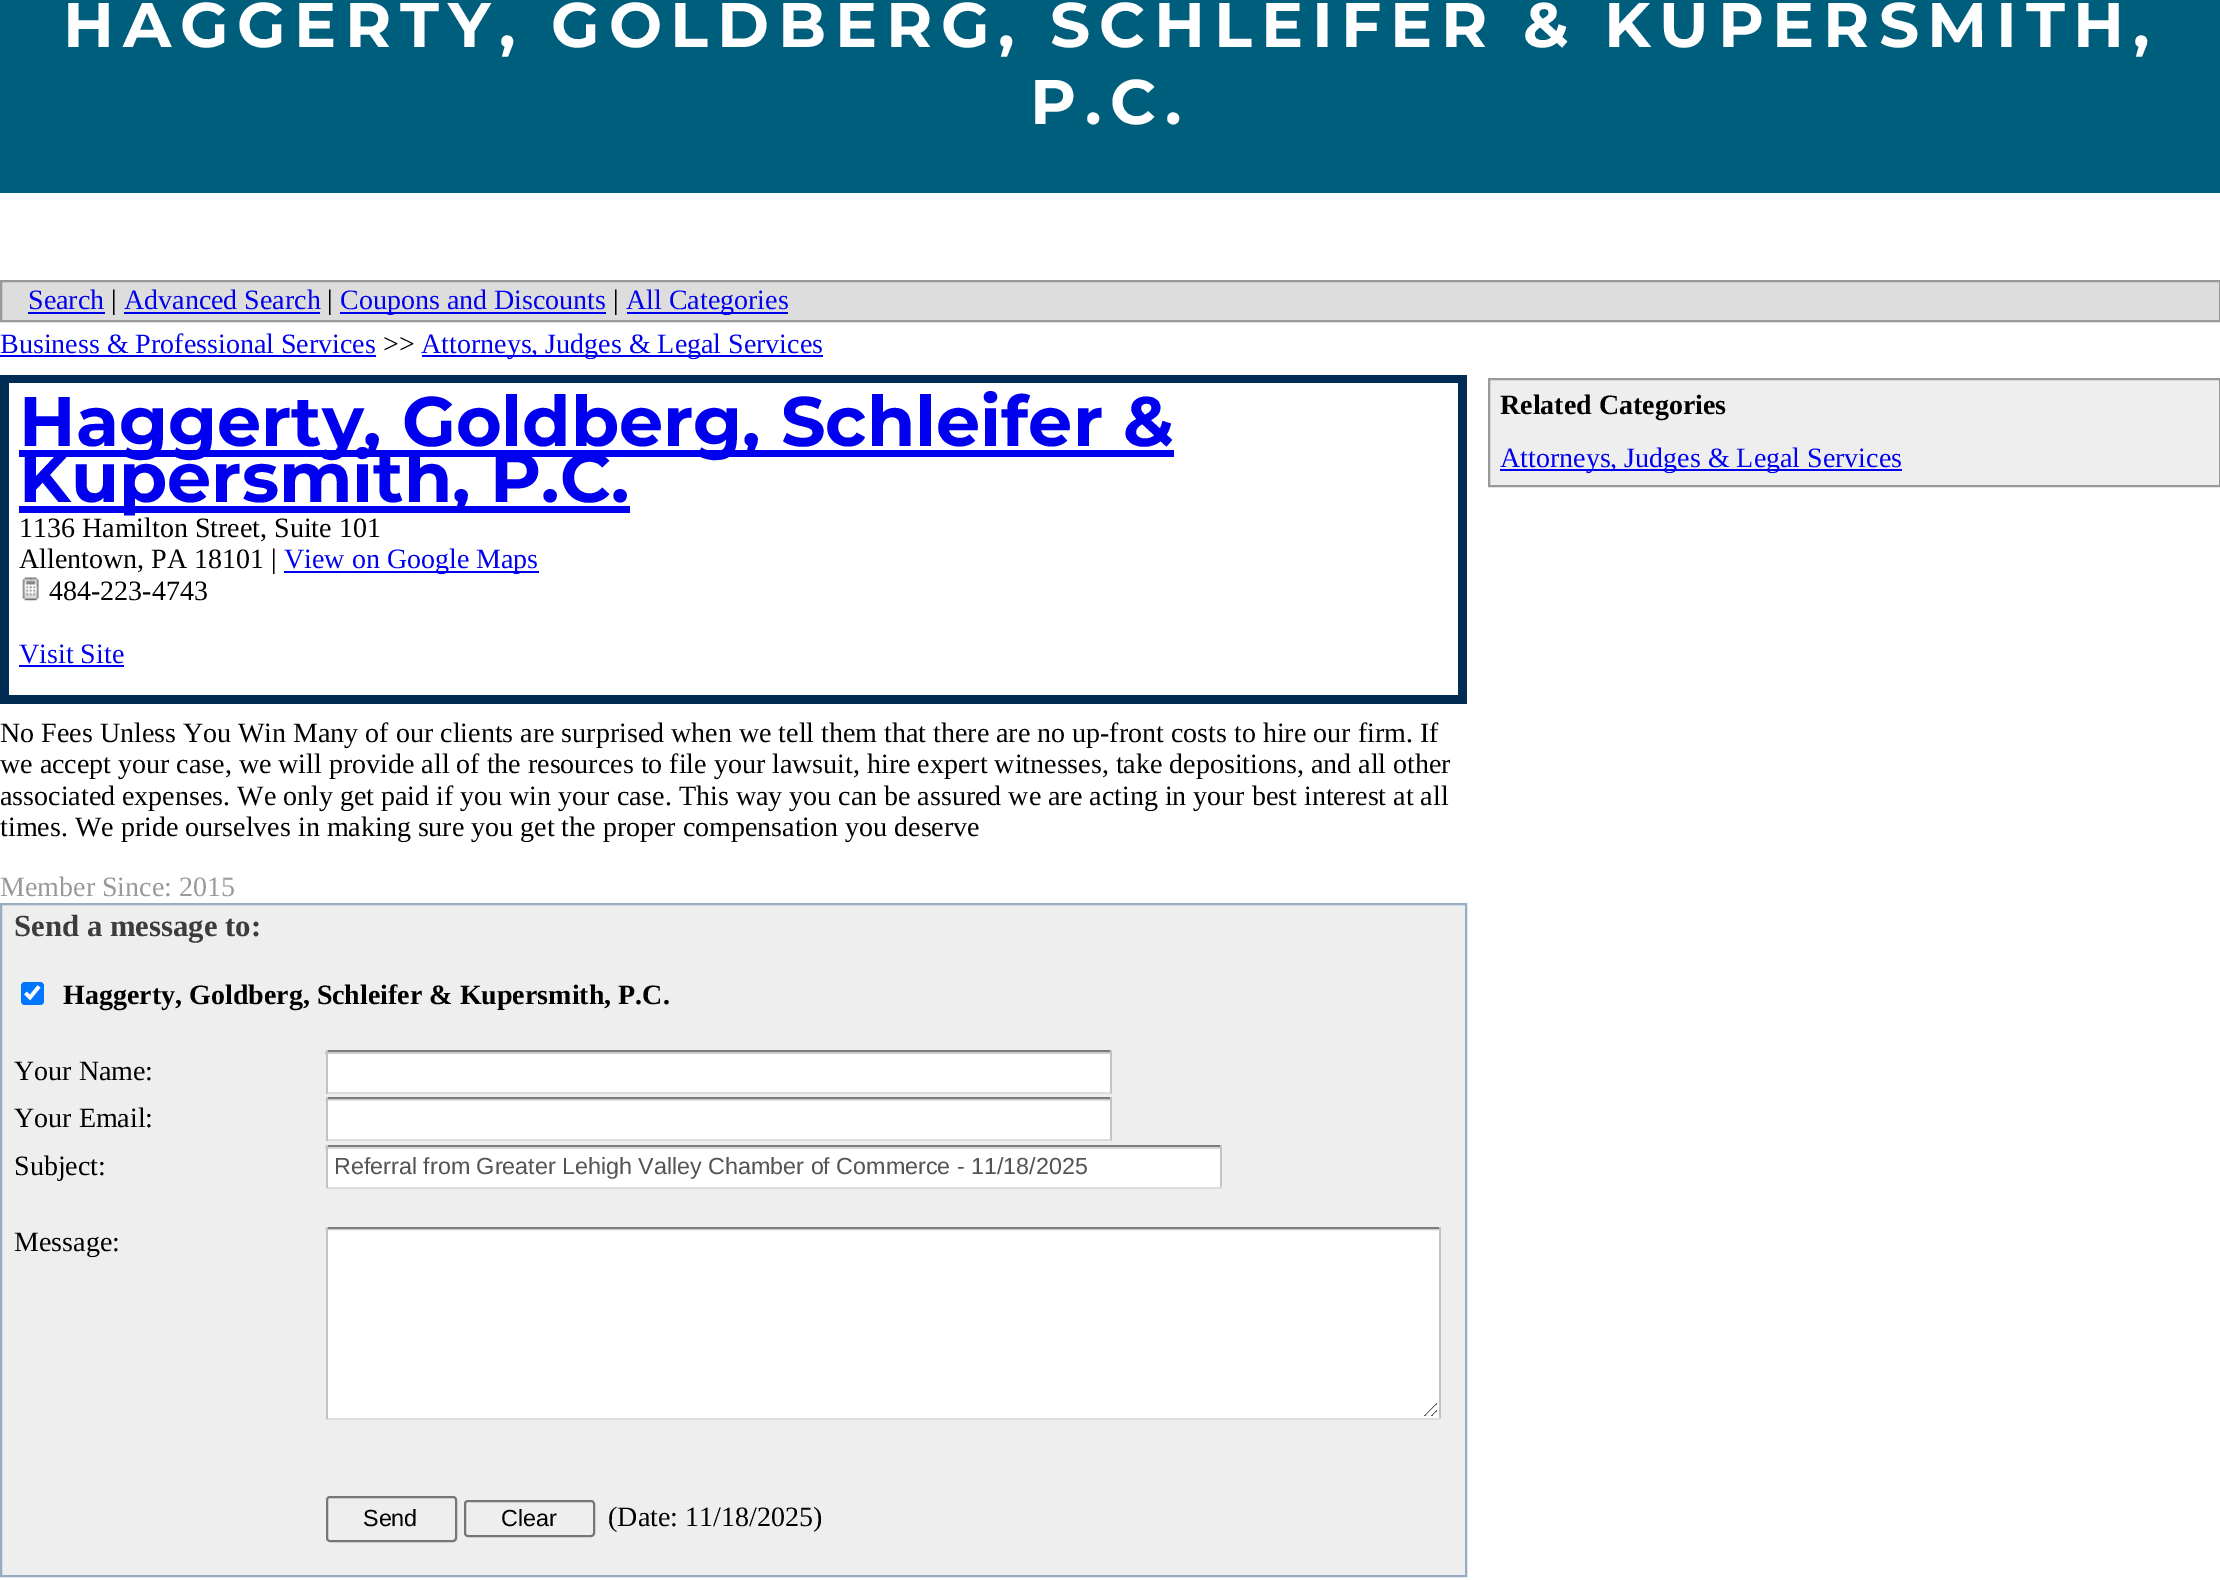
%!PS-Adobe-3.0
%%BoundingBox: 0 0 2220 1580
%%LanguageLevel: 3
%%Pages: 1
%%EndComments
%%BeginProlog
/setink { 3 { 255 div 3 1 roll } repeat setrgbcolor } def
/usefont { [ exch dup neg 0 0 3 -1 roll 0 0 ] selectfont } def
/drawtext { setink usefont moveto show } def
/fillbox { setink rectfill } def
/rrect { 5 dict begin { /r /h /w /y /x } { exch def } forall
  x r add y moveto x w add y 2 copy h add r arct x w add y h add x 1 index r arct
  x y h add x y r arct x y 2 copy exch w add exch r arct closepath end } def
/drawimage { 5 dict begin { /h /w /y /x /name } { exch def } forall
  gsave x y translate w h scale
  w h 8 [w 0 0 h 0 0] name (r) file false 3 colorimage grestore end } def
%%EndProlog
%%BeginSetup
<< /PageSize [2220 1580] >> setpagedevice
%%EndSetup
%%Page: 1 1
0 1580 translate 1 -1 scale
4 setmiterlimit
0 0 2220 1580 255 255 255 fillbox
0 0 2220 193 0 94 125 fillbox
/Montserrat-Thin 63 usefont
255 255 255 setink
63 47 moveto 8.75 0 (HAGGERTY, GOLDBERG, SCHLEIFER & KUPERSMITH,) ashow
1030 124 moveto 8.75 0 (P.C.) ashow
221 221 221 setink
1 281 moveto 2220 281 lineto 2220 321 lineto 1 321 lineto closepath gsave fill grestore
153 153 153 setink
2 setlinewidth
stroke
(Search) 28 309 /LiberationSerif-Regular 28 0 0 238 drawtext
28 312 77 2 0 0 238 fillbox
(|) 111 309 /LiberationSerif-Regular 28 0 0 0 drawtext
(Advanced Search) 124 309 /LiberationSerif-Regular 28 0 0 238 drawtext
124 312 196 2 0 0 238 fillbox
(|) 327 309 /LiberationSerif-Regular 28 0 0 0 drawtext
340 312 266 2 0 0 238 fillbox
(Coupons and Discounts) 340 309 /LiberationSerif-Regular 28 0 0 238 drawtext
(|) 613 309 /LiberationSerif-Regular 28 0 0 0 drawtext
627 312 161 2 0 0 238 fillbox
(All Categories) 626 309 /LiberationSerif-Regular 28 0 0 238 drawtext
(Business & Professional Services) 0 353 /LiberationSerif-Regular 28 0 0 238 drawtext
0 355 376 2 0 0 238 fillbox
(>>) 383 353 /LiberationSerif-Regular 28 0 0 0 drawtext
422 355 401 2 0 0 238 fillbox
(Attorneys, Judges & Legal Services) 421 353 /LiberationSerif-Regular 28 0 0 238 drawtext
0 375 1467 329 1 45 84 fillbox
9 383 1449 312 255 255 255 fillbox
19 450 1155 7 0 0 238 fillbox
(Haggerty, Goldberg, Schleifer &) 19 446 /Montserrat-Thin 70 0 0 238 drawtext
19 506 611 7 0 0 238 fillbox
(Kupersmith, P.C.) 19 502 /Montserrat-Thin 70 0 0 238 drawtext
(1136 Hamilton Street, Suite 101) 19 537 /LiberationSerif-Regular 28 0 0 0 drawtext
(Allentown, PA 18101 |) 19 568 /LiberationSerif-Regular 28 0 0 0 drawtext
284 571 255 2 0 0 238 fillbox
(View on Google Maps) 284 568 /LiberationSerif-Regular 28 0 0 238 drawtext
(assets/img1.rgb) 22 577 17 24 drawimage
(484-223-4743) 49 600 /LiberationSerif-Regular 28 0 0 0 drawtext
(Visit Site) 19 663 /LiberationSerif-Regular 28 0 0 238 drawtext
19 665 105 2 0 0 238 fillbox
(No Fees Unless You Win Many of our clients are surprised when we tell them that there are no up-front costs to hire our firm. If) 0 742 /LiberationSerif-Regular 28 0 0 0 drawtext
(we accept your case, we will provide all of the resources to file your lawsuit, hire expert witnesses, take depositions, and all other) 0 773 /LiberationSerif-Regular 28 0 0 0 drawtext
(associated expenses. We only get paid if you win your case. This way you can be assured we are acting in your best interest at all) 0 805 /LiberationSerif-Regular 28 0 0 0 drawtext
(times. We pride ourselves in making sure you get the proper compensation you deserve) 0 836 /LiberationSerif-Regular 28 0 0 0 drawtext
(Member Since: 2015) 0 896 /LiberationSerif-Regular 28 153 153 153 drawtext
2 905 1463 670 238 238 238 fillbox
325 1146 1 3 211 211 211 fillbox
150 172 195 setink
1 904 1465 672 rectstroke
(Send a message to:) 14 936 /LiberationSerif-Bold 30.75 60 60 60 drawtext
0 117 255 setink
21 982 23 23 4 rrect fill
255 255 255 setink
3.6 setlinewidth
25.5 993 moveto 30 997.5 lineto 39 986.5 lineto stroke
(Haggerty, Goldberg, Schleifer & Kupersmith, P.C.) 63 1004 /LiberationSerif-Bold 28 0 0 0 drawtext
(Your Name:) 14 1080 /LiberationSerif-Regular 28 0 0 0 drawtext
328 1054 782 38 255 255 255 fillbox
325 1051 787 3 204 204 204 fillbox
326 1050 785 2 124 124 124 fillbox
1110 1050 2 44 195 195 195 fillbox
326 1092 785 2 221 221 221 fillbox
326 1050 2 44 195 195 195 fillbox
(Your Email:) 14 1127 /LiberationSerif-Regular 28 0 0 0 drawtext
328 1100 782 39 255 255 255 fillbox
(assets/img2.rgb) 325 1099 785 2 drawimage
326 1097 785 2 124 124 124 fillbox
1110 1097 2 44 195 195 195 fillbox
326 1139 785 2 221 221 221 fillbox
326 1097 2 44 195 195 195 fillbox
(Subject:) 14 1175 /LiberationSerif-Regular 28 0 0 0 drawtext
328 1149 892 38 255 255 255 fillbox
326 1147 896 2 215 215 215 fillbox
326 1145 896 2 124 124 124 fillbox
1220 1145 2 43 195 195 195 fillbox
326 1187 896 2 221 221 221 fillbox
326 1145 2 43 195 195 195 fillbox
(Referral from Greater Lehigh Valley Chamber of Commerce - 11/18/2025) 334 1174 /LiberationSans-Regular 23.3 84 84 84 drawtext
(Message:) 14 1251 /LiberationSerif-Regular 28 0 0 0 drawtext
328 1229 1111 189 255 255 255 fillbox
(assets/img3.rgb) 325 1228 1114 188 drawimage
326 1227 1114 2 124 124 124 fillbox
1439 1227 2 192 195 195 195 fillbox
326 1418 1114 2 221 221 221 fillbox
326 1227 2 192 195 195 195 fillbox
118 118 118 setink
2 setlinewidth
327 1497 129 44 3 rrect stroke
(Send) 363 1526 /LiberationSans-Regular 23.3 0 0 0 drawtext
118 118 118 setink
465 1501 129 35 3 rrect stroke
(Clear) 501 1526 /LiberationSans-Regular 23.3 0 0 0 drawtext
(\(Date: 11/18/2025\)) 608 1526 /LiberationSerif-Regular 28 0 0 0 drawtext
238 238 238 setink
1489 379 moveto 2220 379 lineto 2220 486 lineto 1489 486 lineto closepath gsave fill grestore
153 153 153 setink
stroke
(Related Categories) 1500 414 /LiberationSerif-Bold 28 0 0 0 drawtext
1500 469 402 2 0 0 238 fillbox
(Attorneys, Judges & Legal Services) 1500 467 /LiberationSerif-Regular 28 0 0 238 drawtext
showpage
%%EOF
